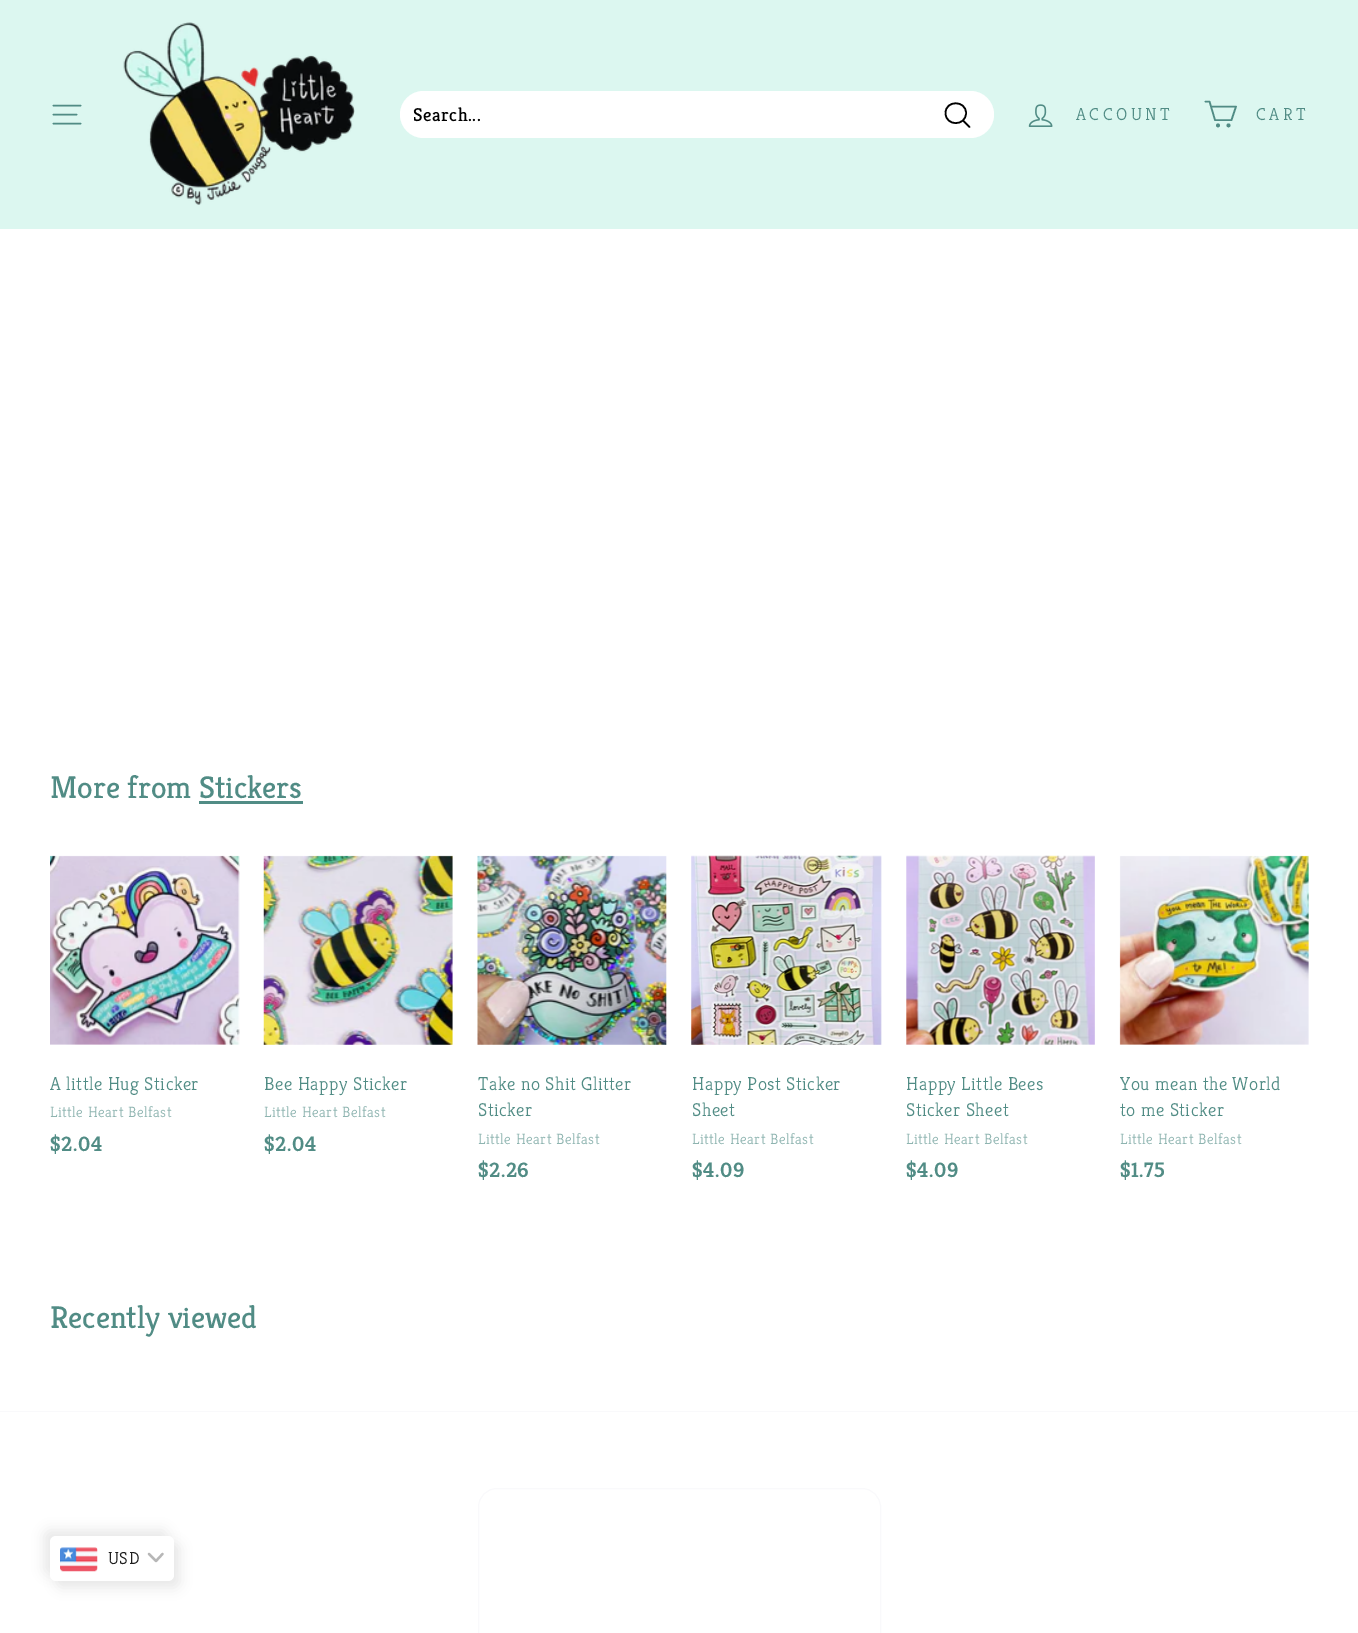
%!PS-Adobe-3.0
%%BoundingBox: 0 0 1358 1633
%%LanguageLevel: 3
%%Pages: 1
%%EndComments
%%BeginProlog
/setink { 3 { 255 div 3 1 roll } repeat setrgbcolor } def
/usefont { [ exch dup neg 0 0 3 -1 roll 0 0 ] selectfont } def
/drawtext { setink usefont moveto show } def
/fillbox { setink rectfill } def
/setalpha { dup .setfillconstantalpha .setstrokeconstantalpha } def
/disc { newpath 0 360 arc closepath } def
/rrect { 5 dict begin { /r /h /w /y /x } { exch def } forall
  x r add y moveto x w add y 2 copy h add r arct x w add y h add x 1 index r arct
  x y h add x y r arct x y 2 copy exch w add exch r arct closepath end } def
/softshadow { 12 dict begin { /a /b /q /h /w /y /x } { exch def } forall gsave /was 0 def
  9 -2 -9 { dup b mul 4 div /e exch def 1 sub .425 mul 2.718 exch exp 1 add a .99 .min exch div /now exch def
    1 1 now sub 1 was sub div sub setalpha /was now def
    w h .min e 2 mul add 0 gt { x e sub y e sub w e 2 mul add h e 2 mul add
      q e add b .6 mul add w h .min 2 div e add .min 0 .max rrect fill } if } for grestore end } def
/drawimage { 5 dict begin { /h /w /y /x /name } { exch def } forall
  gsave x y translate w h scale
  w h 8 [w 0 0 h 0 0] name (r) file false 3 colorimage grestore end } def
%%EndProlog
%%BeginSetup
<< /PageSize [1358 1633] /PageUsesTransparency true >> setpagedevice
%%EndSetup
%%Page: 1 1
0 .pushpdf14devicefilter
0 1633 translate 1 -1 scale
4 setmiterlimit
0 0 1358 1633 255 255 255 fillbox
0 0 1358 229 220 247 240 fillbox
81 140 133 setink
1.6 setlinewidth
1 setlinecap
1 setlinejoin
53.5 105.5 moveto 80.5 105.5 lineto 53.5 114.5 moveto 76.5 114.5 lineto 53.5 123.5 moveto 80.5 123.5 lineto stroke
(assets/img1.rgb) 123 22 232 183 drawimage
255 255 255 setink
400 91 594 47 23.5 rrect fill
/Kreon-Regular 18.75 usefont
0 0 0 setink
413 121 moveto 0.5 0 (Search...) ashow
966 113 moveto 966 126.5 945.5 126.5 945.5 113 curveto 945.5 100 966 100 966 113 curveto closepath 969.5 127 moveto 963 120.5 lineto stroke
(assets/img2.rgb) 1028 104 25 23 drawimage
/Kreon-Light 17.5 usefont
81 140 133 setink
1076 120 moveto 3.5 0 (ACCOUNT) ashow
1211 106.5 moveto 1236 106.5 lineto 1231.5 120 lineto 1215 120 lineto 1209.5 101.5 lineto 1205.5 101.5 lineto stroke
0 setlinecap
0 setlinejoin
1218 125.4 1.1 disc stroke
1228.5 125.4 1.1 disc stroke
1256 120 moveto 3.5 0 (CART) ashow
(More from Stickers) 50 798 /Kreon-Regular 31.5 81 140 133 drawtext
199 801 104 3 81 140 133 fillbox
(assets/img3.rgb) 50 855 190 190 drawimage
/Kreon-Light 18.75 usefont
50 1090 moveto 0.5 0 (A little Hug Sticker) ashow
/Kreon-Light 15 usefont
142 180 176 setink
50 1117 moveto 0.5 0 (Little Heart Belfast) ashow
/Kreon-SemiBold 21 usefont
81 140 133 setink
50 1151 moveto 0.5 0 ($2.04) ashow
(assets/img4.rgb) 263 855 190 190 drawimage
/Kreon-Light 18.75 usefont
264 1090 moveto 0.5 0 (Bee Happy Sticker) ashow
/Kreon-Light 15 usefont
142 180 176 setink
264 1117 moveto 0.5 0 (Little Heart Belfast) ashow
/Kreon-SemiBold 21 usefont
81 140 133 setink
264 1151 moveto 0.5 0 ($2.04) ashow
(assets/img5.rgb) 477 855 190 190 drawimage
/Kreon-Light 18.75 usefont
478 1090 moveto 0.5 0 (Take no Shit Glitter) ashow
478 1116 moveto 0.5 0 (Sticker) ashow
/Kreon-Light 15 usefont
142 180 176 setink
478 1144 moveto 0.5 0 (Little Heart Belfast) ashow
/Kreon-SemiBold 21 usefont
81 140 133 setink
478 1177 moveto 0.5 0 ($2.26) ashow
(assets/img6.rgb) 691 855 191 190 drawimage
/Kreon-Light 18.75 usefont
692 1090 moveto 0.5 0 (Happy Post Sticker) ashow
692 1116 moveto 0.5 0 (Sheet) ashow
/Kreon-Light 15 usefont
142 180 176 setink
692 1144 moveto 0.5 0 (Little Heart Belfast) ashow
/Kreon-SemiBold 21 usefont
81 140 133 setink
692 1177 moveto 0.5 0 ($4.09) ashow
(assets/img7.rgb) 906 855 189 190 drawimage
/Kreon-Light 18.75 usefont
906 1090 moveto 0.5 0 (Happy Little Bees) ashow
906 1116 moveto 0.5 0 (Sticker Sheet) ashow
/Kreon-Light 15 usefont
142 180 176 setink
906 1144 moveto 0.5 0 (Little Heart Belfast) ashow
/Kreon-SemiBold 21 usefont
81 140 133 setink
906 1177 moveto 0.5 0 ($4.09) ashow
(assets/img8.rgb) 1119 855 190 190 drawimage
/Kreon-Light 18.75 usefont
1120 1090 moveto 0.5 0 (You mean the World) ashow
1120 1116 moveto 0.5 0 (to me Sticker) ashow
/Kreon-Light 15 usefont
142 180 176 setink
1120 1144 moveto 0.5 0 (Little Heart Belfast) ashow
/Kreon-SemiBold 21 usefont
81 140 133 setink
1120 1177 moveto 0.5 0 ($1.75) ashow
(Recently viewed) 50 1328 /Kreon-Regular 31.5 81 140 133 drawtext
0 1411 1358 1 249 249 251 fillbox
1 setlinewidth
478.5 1488.5 402 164 18.5 rrect stroke
232 232 232 setink
44 1530 124 45 6 6 1 softshadow
56 1543 124 45 6 6 1 softshadow
255 255 255 setink
50 1536 124 45 6 rrect fill
(assets/img9.rgb) 60 1547 38 25 drawimage
/Kreon-Light 17.5 usefont
30 30 30 setink
108 1564 moveto 0.5 0 (USD) ashow
183 183 183 setink
2.3 setlinewidth
1 setlinecap
1 setlinejoin
149 1554 moveto 156 1561 lineto 162.5 1554 lineto stroke
.poppdf14devicefilter showpage
%%EOF
